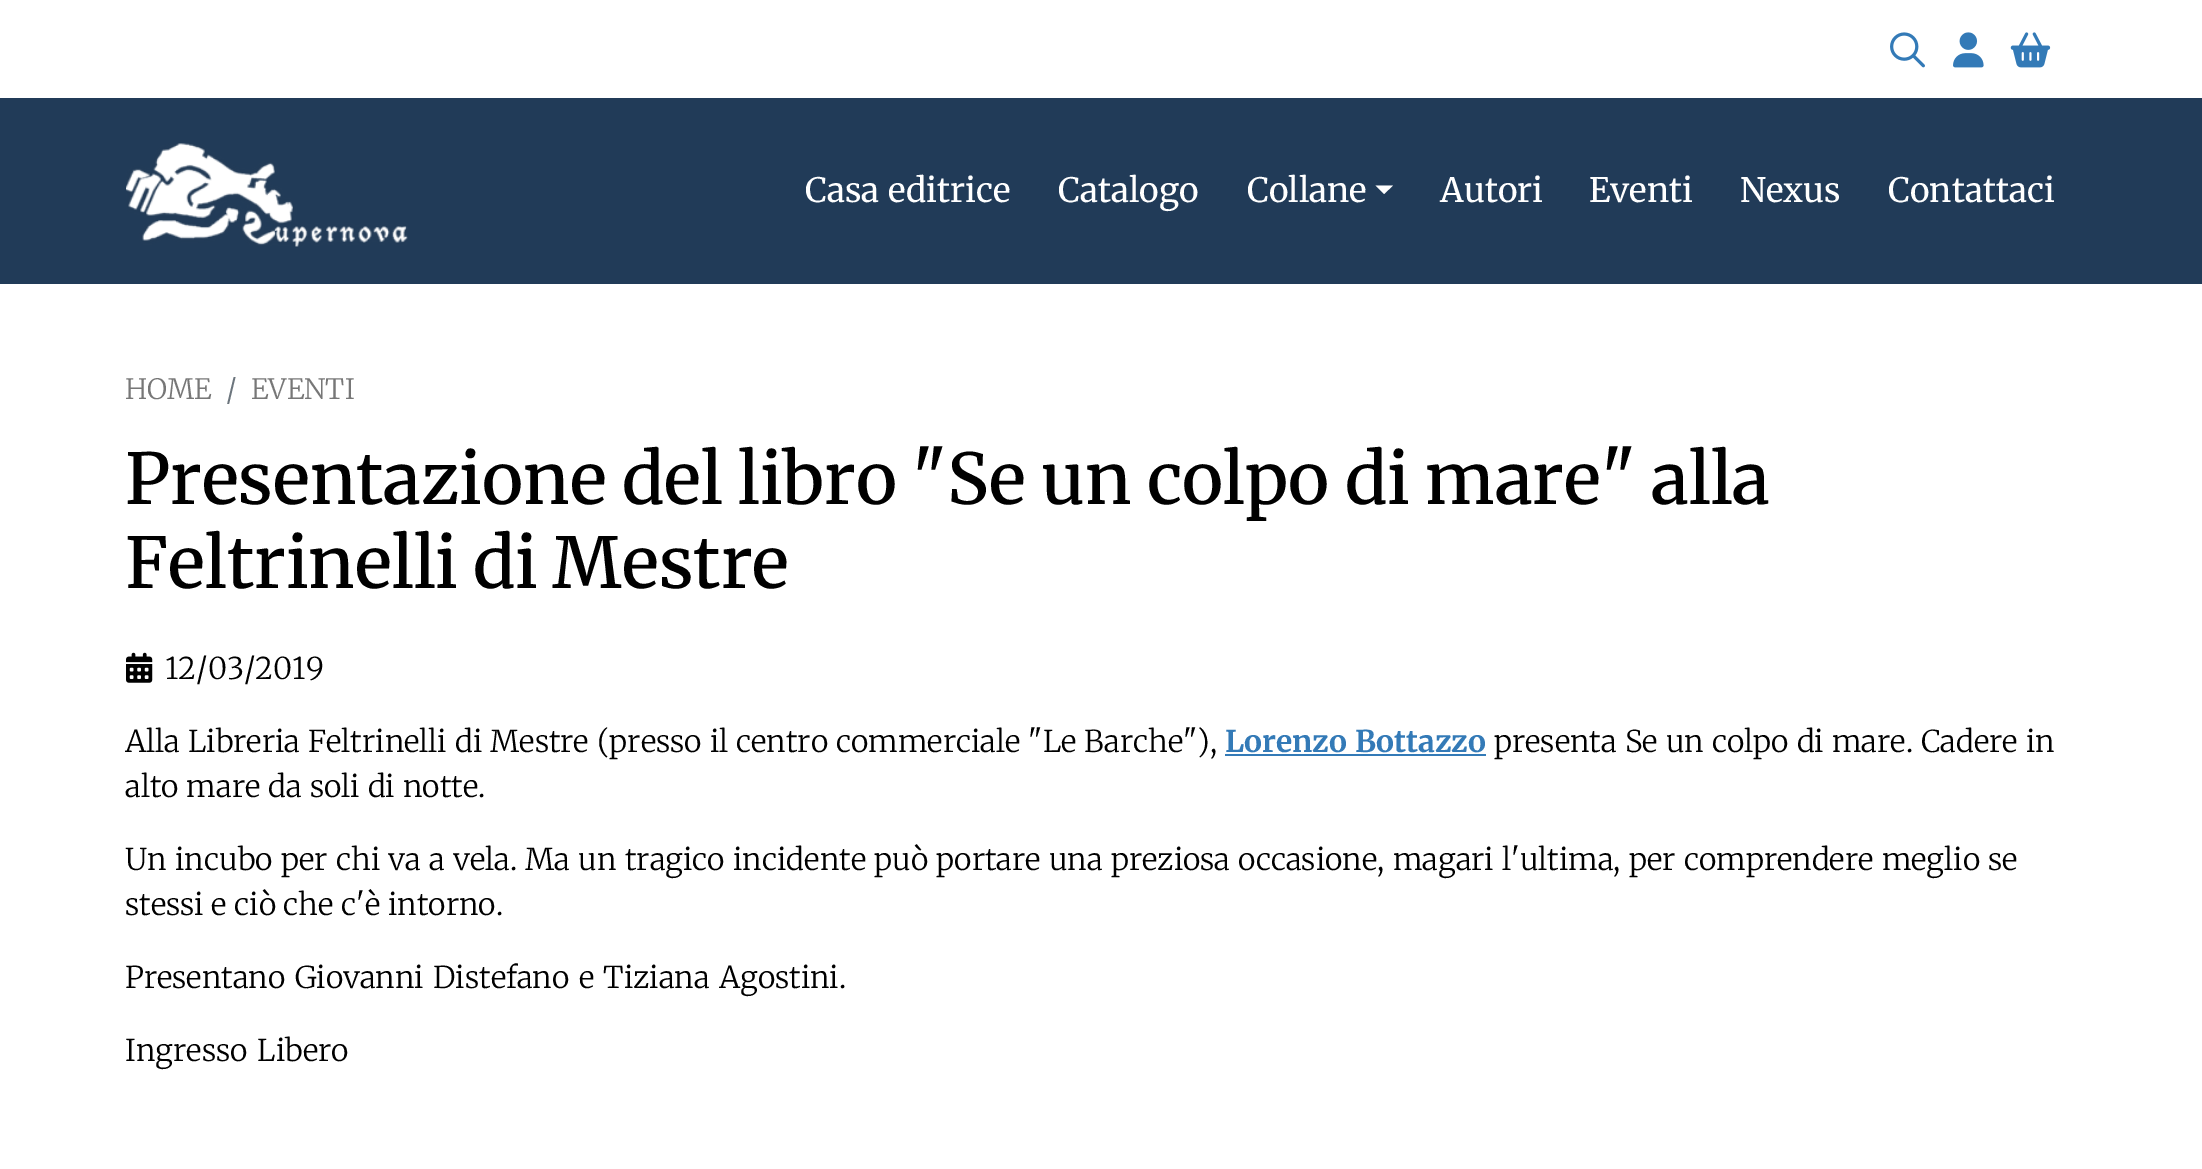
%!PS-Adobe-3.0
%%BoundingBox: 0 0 2202 1169
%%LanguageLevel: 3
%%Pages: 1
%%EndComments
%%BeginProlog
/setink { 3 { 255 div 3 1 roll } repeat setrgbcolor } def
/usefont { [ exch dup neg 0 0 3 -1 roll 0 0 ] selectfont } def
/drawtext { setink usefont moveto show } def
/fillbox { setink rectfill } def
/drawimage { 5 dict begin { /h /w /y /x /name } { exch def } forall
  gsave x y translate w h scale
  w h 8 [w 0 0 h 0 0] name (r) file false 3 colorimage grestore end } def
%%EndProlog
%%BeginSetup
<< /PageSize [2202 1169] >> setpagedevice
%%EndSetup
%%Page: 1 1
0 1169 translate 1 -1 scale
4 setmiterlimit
0 0 2202 1169 255 255 255 fillbox
(assets/img1.rgb) 1890 32 35 36 drawimage
(assets/img2.rgb) 1953 32 31 36 drawimage
(assets/img3.rgb) 2010 32 41 36 drawimage
0 98 2202 186 33 59 88 fillbox
(assets/img4.rgb) 126 143 282 104 drawimage
/Merriweather-Regular 33.5 usefont
255 255 255 setink
805 202 moveto 1 0 32 (Casa editrice) widthshow
(Catalogo) 1058 202 /Merriweather-Regular 33.5 255 255 255 drawtext
(Collane) 1247 202 /Merriweather-Regular 33.5 255 255 255 drawtext
1375.5 185.5 moveto 1393 185.5 lineto 1384 194 lineto closepath fill
(Autori) 1440 202 /Merriweather-Regular 33.5 255 255 255 drawtext
(Eventi) 1589 202 /Merriweather-Regular 33.5 255 255 255 drawtext
(Nexus) 1740 202 /Merriweather-Regular 33.5 255 255 255 drawtext
(Contattaci) 1888 202 /Merriweather-Regular 33.5 255 255 255 drawtext
(HOME) 125 399 /Merriweather-Light 28 119 119 119 drawtext
(/) 226 399 /Merriweather-Light 28 108 117 125 drawtext
(EVENTI) 251 399 /Merriweather-Light 28 119 119 119 drawtext
/Merriweather-Medium 70 usefont
0 0 0 setink
125 504 moveto -1.25 0 32 (Presentazione del libro "Se un colpo di mare" alla) widthshow
125 588 moveto -2 0 32 (Feltrinelli di Mestre) widthshow
(assets/img5.rgb) 126 652 27 31 drawimage
(12/03/2019) 165 679 /Merriweather-Light 30 0 0 0 drawtext
125 752 moveto 1 0 32 (Alla Libreria Feltrinelli di Mestre \(presso il centro commerciale "Le Barche"\),) widthshow
/Merriweather-Bold 30 usefont
51 122 183 setink
1225 752 moveto 1 0 32 (Lorenzo Bottazzo) widthshow
1225 754 261 2 51 122 183 fillbox
/Merriweather-Light 30 usefont
0 0 0 setink
1494 752 moveto 1 0 32 (presenta Se un colpo di mare. Cadere in) widthshow
125 797 moveto 1 0 32 (alto mare da soli di notte.) widthshow
125 870 moveto 1.25 0 32 (Un incubo per chi va a vela. Ma un tragico incidente può portare una preziosa occasione, magari l'ultima, per comprendere meglio se) widthshow
125 915 moveto 0.5 0 32 (stessi e ciò che c'è intorno.) widthshow
125 988 moveto 2.25 0 32 (Presentano Giovanni Distefano e Tiziana Agostini.) widthshow
125 1061 moveto 3 0 32 (Ingresso Libero) widthshow
showpage
%%EOF
